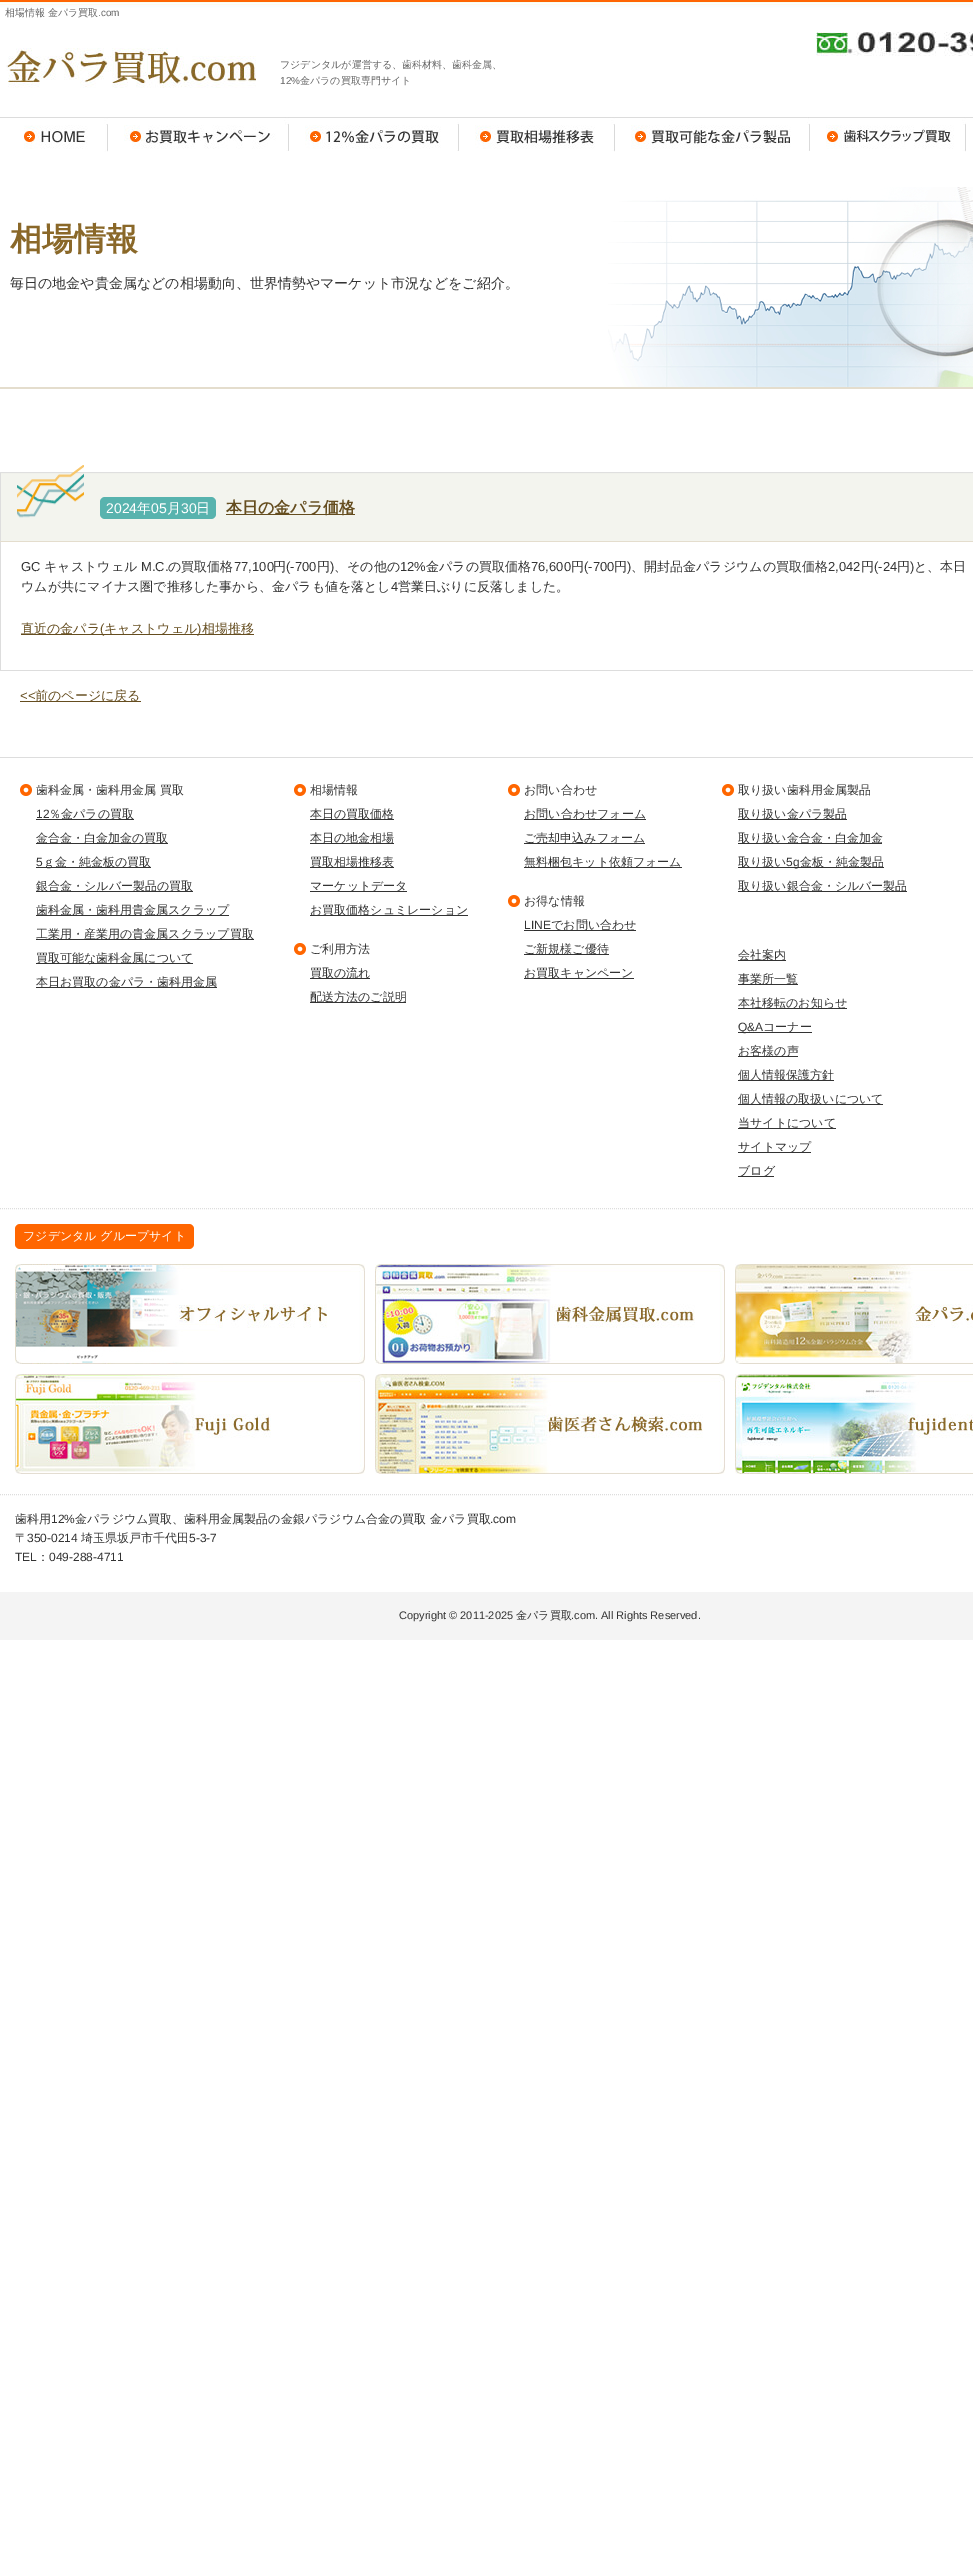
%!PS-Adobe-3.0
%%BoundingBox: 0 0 973 2576
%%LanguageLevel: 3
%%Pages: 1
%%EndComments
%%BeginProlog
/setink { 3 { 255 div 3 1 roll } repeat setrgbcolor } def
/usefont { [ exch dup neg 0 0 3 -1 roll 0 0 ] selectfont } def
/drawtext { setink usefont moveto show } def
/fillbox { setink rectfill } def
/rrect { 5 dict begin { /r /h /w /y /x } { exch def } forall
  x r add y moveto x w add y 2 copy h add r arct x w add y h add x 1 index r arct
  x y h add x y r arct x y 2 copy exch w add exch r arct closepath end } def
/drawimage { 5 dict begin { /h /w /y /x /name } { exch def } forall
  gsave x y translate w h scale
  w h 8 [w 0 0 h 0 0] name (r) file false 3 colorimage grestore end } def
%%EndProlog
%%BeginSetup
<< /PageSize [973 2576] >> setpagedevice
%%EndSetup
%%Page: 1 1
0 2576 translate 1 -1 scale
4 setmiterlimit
0 0 973 2576 255 255 255 fillbox
(assets/img1.rgb) 0 0 973 56 drawimage
(相場情報 金パラ買取) 5 16 /WenQuanYiZenHei-Medium 10 102 102 102 drawtext
(.com) 98 16 /LiberationSans-Regular 10 102 102 102 drawtext
(assets/img2.rgb) 6 48 250 40 drawimage
(フジデンタルが運営する、歯科材料、歯科金属、) 280 68 /WenQuanYiZenHei-Medium 10 102 102 102 drawtext
(12%) 280 84 /LiberationSans-Regular 10 102 102 102 drawtext
(金パラの買取専門サイト) 300 84 /WenQuanYiZenHei-Medium 10 102 102 102 drawtext
(assets/img3.rgb) 0 117 108 35 drawimage
(assets/img4.rgb) 24 125 64 24 drawimage
(assets/img5.rgb) 108 117 181 34 drawimage
(assets/img6.rgb) 132 125 144 24 drawimage
(assets/img7.rgb) 289 117 170 34 drawimage
(assets/img8.rgb) 306 125 135 24 drawimage
(assets/img9.rgb) 459 117 156 35 drawimage
(assets/img10.rgb) 475 125 120 24 drawimage
(assets/img11.rgb) 615 117 195 34 drawimage
(assets/img12.rgb) 631 125 160 24 drawimage
(assets/img13.rgb) 810 117 156 34 drawimage
(assets/img14.rgb) 826 125 140 27 drawimage
966 117 7 1 220 220 220 fillbox
0 387 973 2 228 221 205 fillbox
(相場情報) 10 250 /WenQuanYiZenHei-Bold 32 138 104 41 drawtext
(毎日の地金や貴金属などの相場動向、世界情勢やマーケット市況などをご紹介。) 10 288 /WenQuanYiZenHei-Medium 14 51 51 51 drawtext
(assets/img15.rgb) 608 187 365 200 drawimage
0 670 973 1 221 221 221 fillbox
0 542 1 129 221 221 221 fillbox
(assets/img16.rgb) 0 460 973 81 drawimage
0 541 973 1 228 221 205 fillbox
88 179 174 setink
100 497 116 22 5 rrect fill
(2024) 106 513 /LiberationSans-Regular 14 255 255 255 drawtext
(年) 137 513 /WenQuanYiZenHei-Medium 14 255 255 255 drawtext
(05) 151 513 /LiberationSans-Regular 14 255 255 255 drawtext
(月) 167 513 /WenQuanYiZenHei-Medium 14 255 255 255 drawtext
(30) 181 513 /LiberationSans-Regular 14 255 255 255 drawtext
(日) 196 513 /WenQuanYiZenHei-Medium 14 255 255 255 drawtext
226 514 129 1 101 77 31 fillbox
(本日の金パラ価格) 226 513 /WenQuanYiZenHei-Bold 16 101 77 31 drawtext
(GC) 21 571 /LiberationSans-Regular 13 51 51 51 drawtext
(キャストウェル) 44 571 /WenQuanYiZenHei-Medium 13 51 51 51 drawtext
(M.C.) 141 571 /LiberationSans-Regular 13 51 51 51 drawtext
(の買取価格) 168 571 /WenQuanYiZenHei-Medium 13 51 51 51 drawtext
(77,100) 234 571 /LiberationSans-Regular 13 51 51 51 drawtext
(円) 273 571 /WenQuanYiZenHei-Medium 13 51 51 51 drawtext
(\(-700) 286 571 /LiberationSans-Regular 13 51 51 51 drawtext
(円) 317 571 /WenQuanYiZenHei-Medium 13 51 51 51 drawtext
(\)) 330 571 /LiberationSans-Regular 13 51 51 51 drawtext
(、その他の) 334 571 /WenQuanYiZenHei-Medium 13 51 51 51 drawtext
(12%) 400 571 /LiberationSans-Regular 13 51 51 51 drawtext
(金パラの買取価格) 426 571 /WenQuanYiZenHei-Medium 13 51 51 51 drawtext
(76,600) 531 571 /LiberationSans-Regular 13 51 51 51 drawtext
(円) 571 571 /WenQuanYiZenHei-Medium 13 51 51 51 drawtext
(\(-700) 584 571 /LiberationSans-Regular 13 51 51 51 drawtext
(円) 614 571 /WenQuanYiZenHei-Medium 13 51 51 51 drawtext
(\)) 627 571 /LiberationSans-Regular 13 51 51 51 drawtext
(、開封品金パラジウムの買取価格) 631 571 /WenQuanYiZenHei-Medium 13 51 51 51 drawtext
(2,042) 828 571 /LiberationSans-Regular 13 51 51 51 drawtext
(円) 861 571 /WenQuanYiZenHei-Medium 13 51 51 51 drawtext
(\(-24) 874 571 /LiberationSans-Regular 13 51 51 51 drawtext
(円) 897 571 /WenQuanYiZenHei-Medium 13 51 51 51 drawtext
(\)) 910 571 /LiberationSans-Regular 13 51 51 51 drawtext
(と、本日) 914 571 /WenQuanYiZenHei-Medium 13 51 51 51 drawtext
(ウムが共にマイナス圏で推移した事から、金パラも値を落とし) 21 591 /WenQuanYiZenHei-Medium 13 51 51 51 drawtext
(4) 391 591 /LiberationSans-Regular 13 51 51 51 drawtext
(営業日ぶりに反落しました。) 398 591 /WenQuanYiZenHei-Medium 13 51 51 51 drawtext
21 634 233 1 101 77 31 fillbox
(直近の金パラ) 21 633 /WenQuanYiZenHei-Medium 13 101 77 31 drawtext
(\() 100 633 /LiberationSans-Regular 13 101 77 31 drawtext
(キャストウェル) 104 633 /WenQuanYiZenHei-Medium 13 101 77 31 drawtext
(\)) 197 633 /LiberationSans-Regular 13 101 77 31 drawtext
(相場推移) 202 633 /WenQuanYiZenHei-Medium 13 101 77 31 drawtext
(<<) 20 700 /LiberationSans-Regular 13 101 77 31 drawtext
20 701 121 1 101 77 31 fillbox
(前のページに戻る) 35 700 /WenQuanYiZenHei-Medium 13 101 77 31 drawtext
0 757 973 1 221 221 221 fillbox
(assets/img17.rgb) 20 784 12 12 drawimage
(歯科金属・歯科用金属 買取) 36 794 /WenQuanYiZenHei-Medium 12 51 51 51 drawtext
(12) 36 818 /LiberationSans-Regular 12 51 51 51 drawtext
36 819 98 1 51 51 51 fillbox
(％金パラの買取) 49 818 /WenQuanYiZenHei-Medium 12 51 51 51 drawtext
36 843 132 1 51 51 51 fillbox
(金合金・白金加金の買取) 36 842 /WenQuanYiZenHei-Medium 12 51 51 51 drawtext
(5) 36 866 /LiberationSans-Regular 12 51 51 51 drawtext
36 867 115 1 51 51 51 fillbox
(ｇ金・純金板の買取) 43 866 /WenQuanYiZenHei-Medium 12 51 51 51 drawtext
36 891 157 1 51 51 51 fillbox
(銀合金・シルバー製品の買取) 36 890 /WenQuanYiZenHei-Medium 12 51 51 51 drawtext
36 915 193 1 51 51 51 fillbox
(歯科金属・歯科用貴金属スクラップ) 36 914 /WenQuanYiZenHei-Medium 12 51 51 51 drawtext
36 939 218 1 51 51 51 fillbox
(工業用・産業用の貴金属スクラップ買取) 36 938 /WenQuanYiZenHei-Medium 12 51 51 51 drawtext
36 963 157 1 51 51 51 fillbox
(買取可能な歯科金属について) 36 962 /WenQuanYiZenHei-Medium 12 51 51 51 drawtext
36 987 181 1 51 51 51 fillbox
(本日お買取の金パラ・歯科用金属) 36 986 /WenQuanYiZenHei-Medium 12 51 51 51 drawtext
(assets/img17.rgb) 294 784 12 12 drawimage
(相場情報) 310 794 /WenQuanYiZenHei-Medium 12 51 51 51 drawtext
310 819 84 1 51 51 51 fillbox
(本日の買取価格) 310 818 /WenQuanYiZenHei-Medium 12 51 51 51 drawtext
310 843 84 1 51 51 51 fillbox
(本日の地金相場) 310 842 /WenQuanYiZenHei-Medium 12 51 51 51 drawtext
310 867 84 1 51 51 51 fillbox
(買取相場推移表) 310 866 /WenQuanYiZenHei-Medium 12 51 51 51 drawtext
310 891 97 1 51 51 51 fillbox
(マーケットデータ) 310 890 /WenQuanYiZenHei-Medium 12 51 51 51 drawtext
310 915 158 1 51 51 51 fillbox
(お買取価格シュミレーション) 310 914 /WenQuanYiZenHei-Medium 12 51 51 51 drawtext
(assets/img17.rgb) 294 943 12 12 drawimage
(ご利用方法) 310 953 /WenQuanYiZenHei-Medium 12 51 51 51 drawtext
310 978 60 1 51 51 51 fillbox
(買取の流れ) 310 977 /WenQuanYiZenHei-Medium 12 51 51 51 drawtext
310 1002 96 1 51 51 51 fillbox
(配送方法のご説明) 310 1001 /WenQuanYiZenHei-Medium 12 51 51 51 drawtext
(assets/img17.rgb) 508 784 12 12 drawimage
(お問い合わせ) 524 794 /WenQuanYiZenHei-Medium 12 51 51 51 drawtext
524 819 122 1 51 51 51 fillbox
(お問い合わせフォーム) 524 818 /WenQuanYiZenHei-Medium 12 51 51 51 drawtext
524 843 121 1 51 51 51 fillbox
(ご売却申込みフォーム) 524 842 /WenQuanYiZenHei-Medium 12 51 51 51 drawtext
524 867 158 1 51 51 51 fillbox
(無料梱包キット依頼フォーム) 524 866 /WenQuanYiZenHei-Medium 12 51 51 51 drawtext
(assets/img17.rgb) 508 895 12 12 drawimage
(お得な情報) 524 905 /WenQuanYiZenHei-Medium 12 51 51 51 drawtext
(LINE) 524 929 /LiberationSans-Regular 12 51 51 51 drawtext
524 930 112 1 51 51 51 fillbox
(でお問い合わせ) 551 929 /WenQuanYiZenHei-Medium 12 51 51 51 drawtext
524 954 85 1 51 51 51 fillbox
(ご新規様ご優待) 524 953 /WenQuanYiZenHei-Medium 12 51 51 51 drawtext
524 978 110 1 51 51 51 fillbox
(お買取キャンペーン) 524 977 /WenQuanYiZenHei-Medium 12 51 51 51 drawtext
(assets/img17.rgb) 722 784 12 12 drawimage
(取り扱い歯科用金属製品) 738 794 /WenQuanYiZenHei-Medium 12 51 51 51 drawtext
738 819 109 1 51 51 51 fillbox
(取り扱い金パラ製品) 738 818 /WenQuanYiZenHei-Medium 12 51 51 51 drawtext
738 843 144 1 51 51 51 fillbox
(取り扱い金合金・白金加金) 738 842 /WenQuanYiZenHei-Medium 12 51 51 51 drawtext
738 867 146 1 51 51 51 fillbox
(取り扱い) 738 866 /WenQuanYiZenHei-Medium 12 51 51 51 drawtext
(5g) 786 866 /LiberationSans-Regular 12 51 51 51 drawtext
(金板・純金製品) 800 866 /WenQuanYiZenHei-Medium 12 51 51 51 drawtext
738 891 169 1 51 51 51 fillbox
(取り扱い銀合金・シルバー製品) 738 890 /WenQuanYiZenHei-Medium 12 51 51 51 drawtext
738 960 48 1 51 51 51 fillbox
(会社案内) 738 959 /WenQuanYiZenHei-Medium 12 51 51 51 drawtext
738 984 60 1 51 51 51 fillbox
(事業所一覧) 738 983 /WenQuanYiZenHei-Medium 12 51 51 51 drawtext
738 1008 109 1 51 51 51 fillbox
(本社移転のお知らせ) 738 1007 /WenQuanYiZenHei-Medium 12 51 51 51 drawtext
738 1032 74 1 51 51 51 fillbox
(Q&A) 738 1031 /LiberationSans-Regular 12 51 51 51 drawtext
(コーナー) 763 1031 /WenQuanYiZenHei-Medium 12 51 51 51 drawtext
738 1056 60 1 51 51 51 fillbox
(お客様の声) 738 1055 /WenQuanYiZenHei-Medium 12 51 51 51 drawtext
738 1080 96 1 51 51 51 fillbox
(個人情報保護方針) 738 1079 /WenQuanYiZenHei-Medium 12 51 51 51 drawtext
738 1104 145 1 51 51 51 fillbox
(個人情報の取扱いについて) 738 1103 /WenQuanYiZenHei-Medium 12 51 51 51 drawtext
738 1128 98 1 51 51 51 fillbox
(当サイトについて) 738 1127 /WenQuanYiZenHei-Medium 12 51 51 51 drawtext
738 1152 73 1 51 51 51 fillbox
(サイトマップ) 738 1151 /WenQuanYiZenHei-Medium 12 51 51 51 drawtext
738 1176 36 1 51 51 51 fillbox
(ブログ) 738 1175 /WenQuanYiZenHei-Medium 12 51 51 51 drawtext
221 221 221 setink
[1 1] 0 setdash
0 1208.5 moveto 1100 1208.5 lineto stroke
255 102 0 setink
15 1224 179 25 5 rrect fill
(フジデンタル グループサイト) 23 1240 /WenQuanYiZenHei-Medium 12 255 255 255 drawtext
(assets/img18.rgb) 15 1264 350 100 drawimage
(assets/img19.rgb) 375 1264 350 100 drawimage
(assets/img20.rgb) 735 1264 238 100 drawimage
(assets/img21.rgb) 15 1374 350 100 drawimage
(assets/img22.rgb) 375 1374 350 100 drawimage
(assets/img23.rgb) 735 1374 238 100 drawimage
221 221 221 setink
0 1494.5 moveto 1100 1494.5 lineto stroke
(歯科用) 15 1523 /WenQuanYiZenHei-Medium 12 51 51 51 drawtext
(12%) 51 1523 /LiberationSans-Regular 12 51 51 51 drawtext
(金パラジウム買取、歯科用金属製品の金銀パラジウム合金の買取 金パラ買取) 75 1523 /WenQuanYiZenHei-Medium 12 51 51 51 drawtext
(.com) 490 1523 /LiberationSans-Regular 12 51 51 51 drawtext
(〒) 15 1542 /WenQuanYiZenHei-Medium 12 51 51 51 drawtext
(350-0214) 27 1542 /LiberationSans-Regular 12 51 51 51 drawtext
(埼玉県坂戸市千代田) 81 1542 /WenQuanYiZenHei-Medium 12 51 51 51 drawtext
(5-3-7) 189 1542 /LiberationSans-Regular 12 51 51 51 drawtext
(TEL) 15 1561 /LiberationSans-Regular 12 51 51 51 drawtext
(：) 37 1561 /WenQuanYiZenHei-Medium 12 51 51 51 drawtext
(049-288-4711) 49 1561 /LiberationSans-Regular 12 51 51 51 drawtext
0 1592 973 48 244 244 244 fillbox
(Copyright © 2011-2025) 399 1619 /LiberationSans-Regular 11 51 51 51 drawtext
(金パラ買取) 516 1619 /WenQuanYiZenHei-Medium 11 51 51 51 drawtext
(.com. All Rights Reserved.) 571 1619 /LiberationSans-Regular 11 51 51 51 drawtext
showpage
%%EOF
